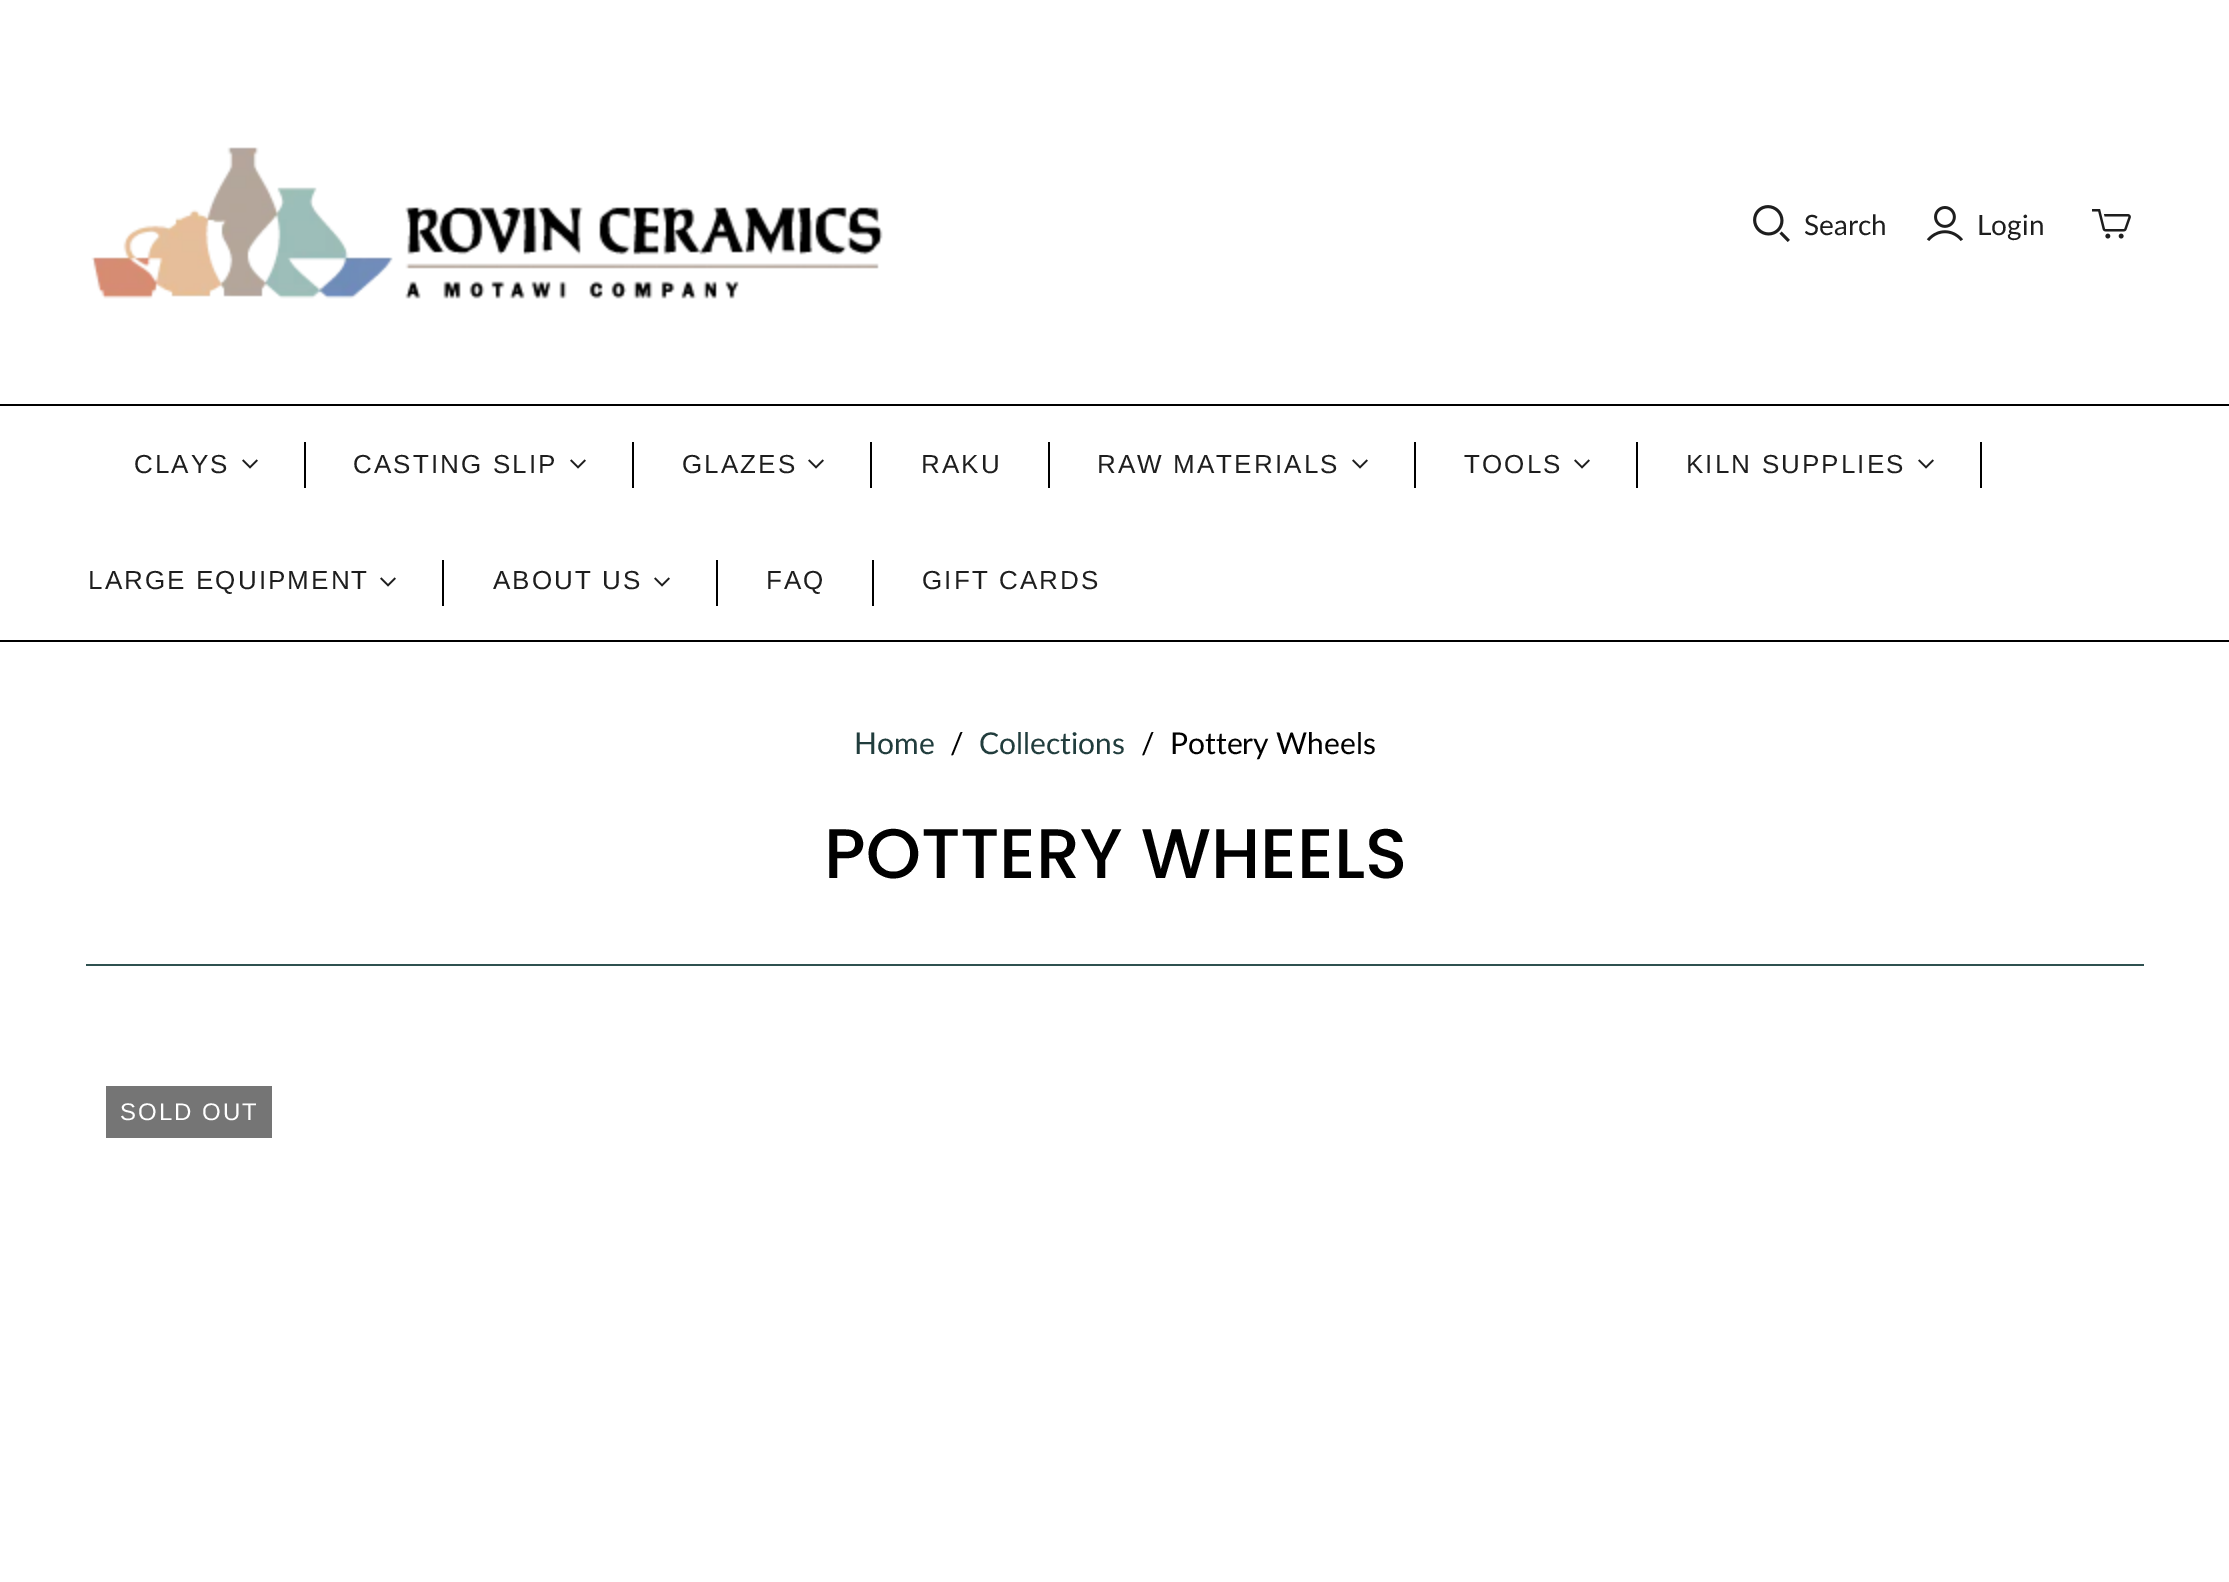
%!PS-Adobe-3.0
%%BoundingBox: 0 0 2229 1582
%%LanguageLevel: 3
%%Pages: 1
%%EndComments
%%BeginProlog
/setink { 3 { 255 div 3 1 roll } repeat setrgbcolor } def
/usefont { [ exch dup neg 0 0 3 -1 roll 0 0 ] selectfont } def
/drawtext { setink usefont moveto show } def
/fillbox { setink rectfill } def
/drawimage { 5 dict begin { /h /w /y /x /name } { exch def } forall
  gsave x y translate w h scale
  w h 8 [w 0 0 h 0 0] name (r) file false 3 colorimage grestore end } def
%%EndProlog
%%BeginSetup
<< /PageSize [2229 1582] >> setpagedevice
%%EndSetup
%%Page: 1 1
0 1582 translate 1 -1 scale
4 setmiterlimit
0 0 2229 1582 255 255 255 fillbox
(assets/img1.rgb) 91 147 792 152 drawimage
(assets/img2.rgb) 1753 205 37 37 drawimage
(Search) 1804 235 /Lato-Regular 28 30 30 30 drawtext
(assets/img3.rgb) 1926 206 37 35 drawimage
(Login) 1977 235 /Lato-Regular 28 30 30 30 drawtext
(assets/img4.rgb) 2092 209 39 30 drawimage
0 404 2229 2 0 0 0 fillbox
0 640 2229 2 0 0 0 fillbox
/LiberationSans-Regular 26 usefont
30 30 30 setink
134 473 moveto 2.1 0 (CLAYS) ashow
(assets/img5.rgb) 242 459 16 10 drawimage
304 442 2 46 0 0 0 fillbox
30 30 30 setink
353 473 moveto 2.1 0 (CASTING SLIP) ashow
(assets/img5.rgb) 570 459 16 10 drawimage
632 442 2 46 0 0 0 fillbox
30 30 30 setink
682 473 moveto 2.1 0 (GLAZES) ashow
(assets/img5.rgb) 808 459 16 10 drawimage
870 442 2 46 0 0 0 fillbox
30 30 30 setink
921 473 moveto 2.1 0 (RAKU) ashow
1048 442 2 46 0 0 0 fillbox
30 30 30 setink
1097 473 moveto 2.1 0 (RAW MATERIALS) ashow
(assets/img5.rgb) 1352 459 16 10 drawimage
1414 442 2 46 0 0 0 fillbox
30 30 30 setink
1464 473 moveto 2.1 0 (TOOLS) ashow
(assets/img5.rgb) 1574 459 16 10 drawimage
1636 442 2 46 0 0 0 fillbox
30 30 30 setink
1686 473 moveto 2.1 0 (KILN SUPPLIES) ashow
(assets/img5.rgb) 1918 459 16 10 drawimage
1980 442 2 46 0 0 0 fillbox
30 30 30 setink
88 589 moveto 2.1 0 (LARGE EQUIPMENT) ashow
(assets/img5.rgb) 380 577 16 10 drawimage
442 560 2 46 0 0 0 fillbox
30 30 30 setink
493 589 moveto 2.1 0 (ABOUT US) ashow
(assets/img5.rgb) 654 577 16 10 drawimage
716 560 2 46 0 0 0 fillbox
30 30 30 setink
766 589 moveto 2.1 0 (FAQ) ashow
872 560 2 46 0 0 0 fillbox
30 30 30 setink
922 589 moveto 2.1 0 (GIFT CARDS) ashow
86 964 2058 2 47 81 80 fillbox
(Home) 854 754 /Lato-Regular 30 33 61 61 drawtext
(/) 950 754 /Lato-Regular 30 0 0 0 drawtext
(Collections) 979 754 /Lato-Regular 30 33 61 61 drawtext
(/) 1141 754 /Lato-Regular 30 0 0 0 drawtext
(Pottery Wheels) 1170 754 /Lato-Regular 30 0 0 0 drawtext
(POTTERY WHEELS) 824 878 /Poppins-Medium 70 0 0 0 drawtext
106 1086 166 52 117 117 117 fillbox
/LiberationSans-Regular 24 usefont
255 255 255 setink
120 1120 moveto 2 0 (SOLD OUT) ashow
showpage
%%EOF
